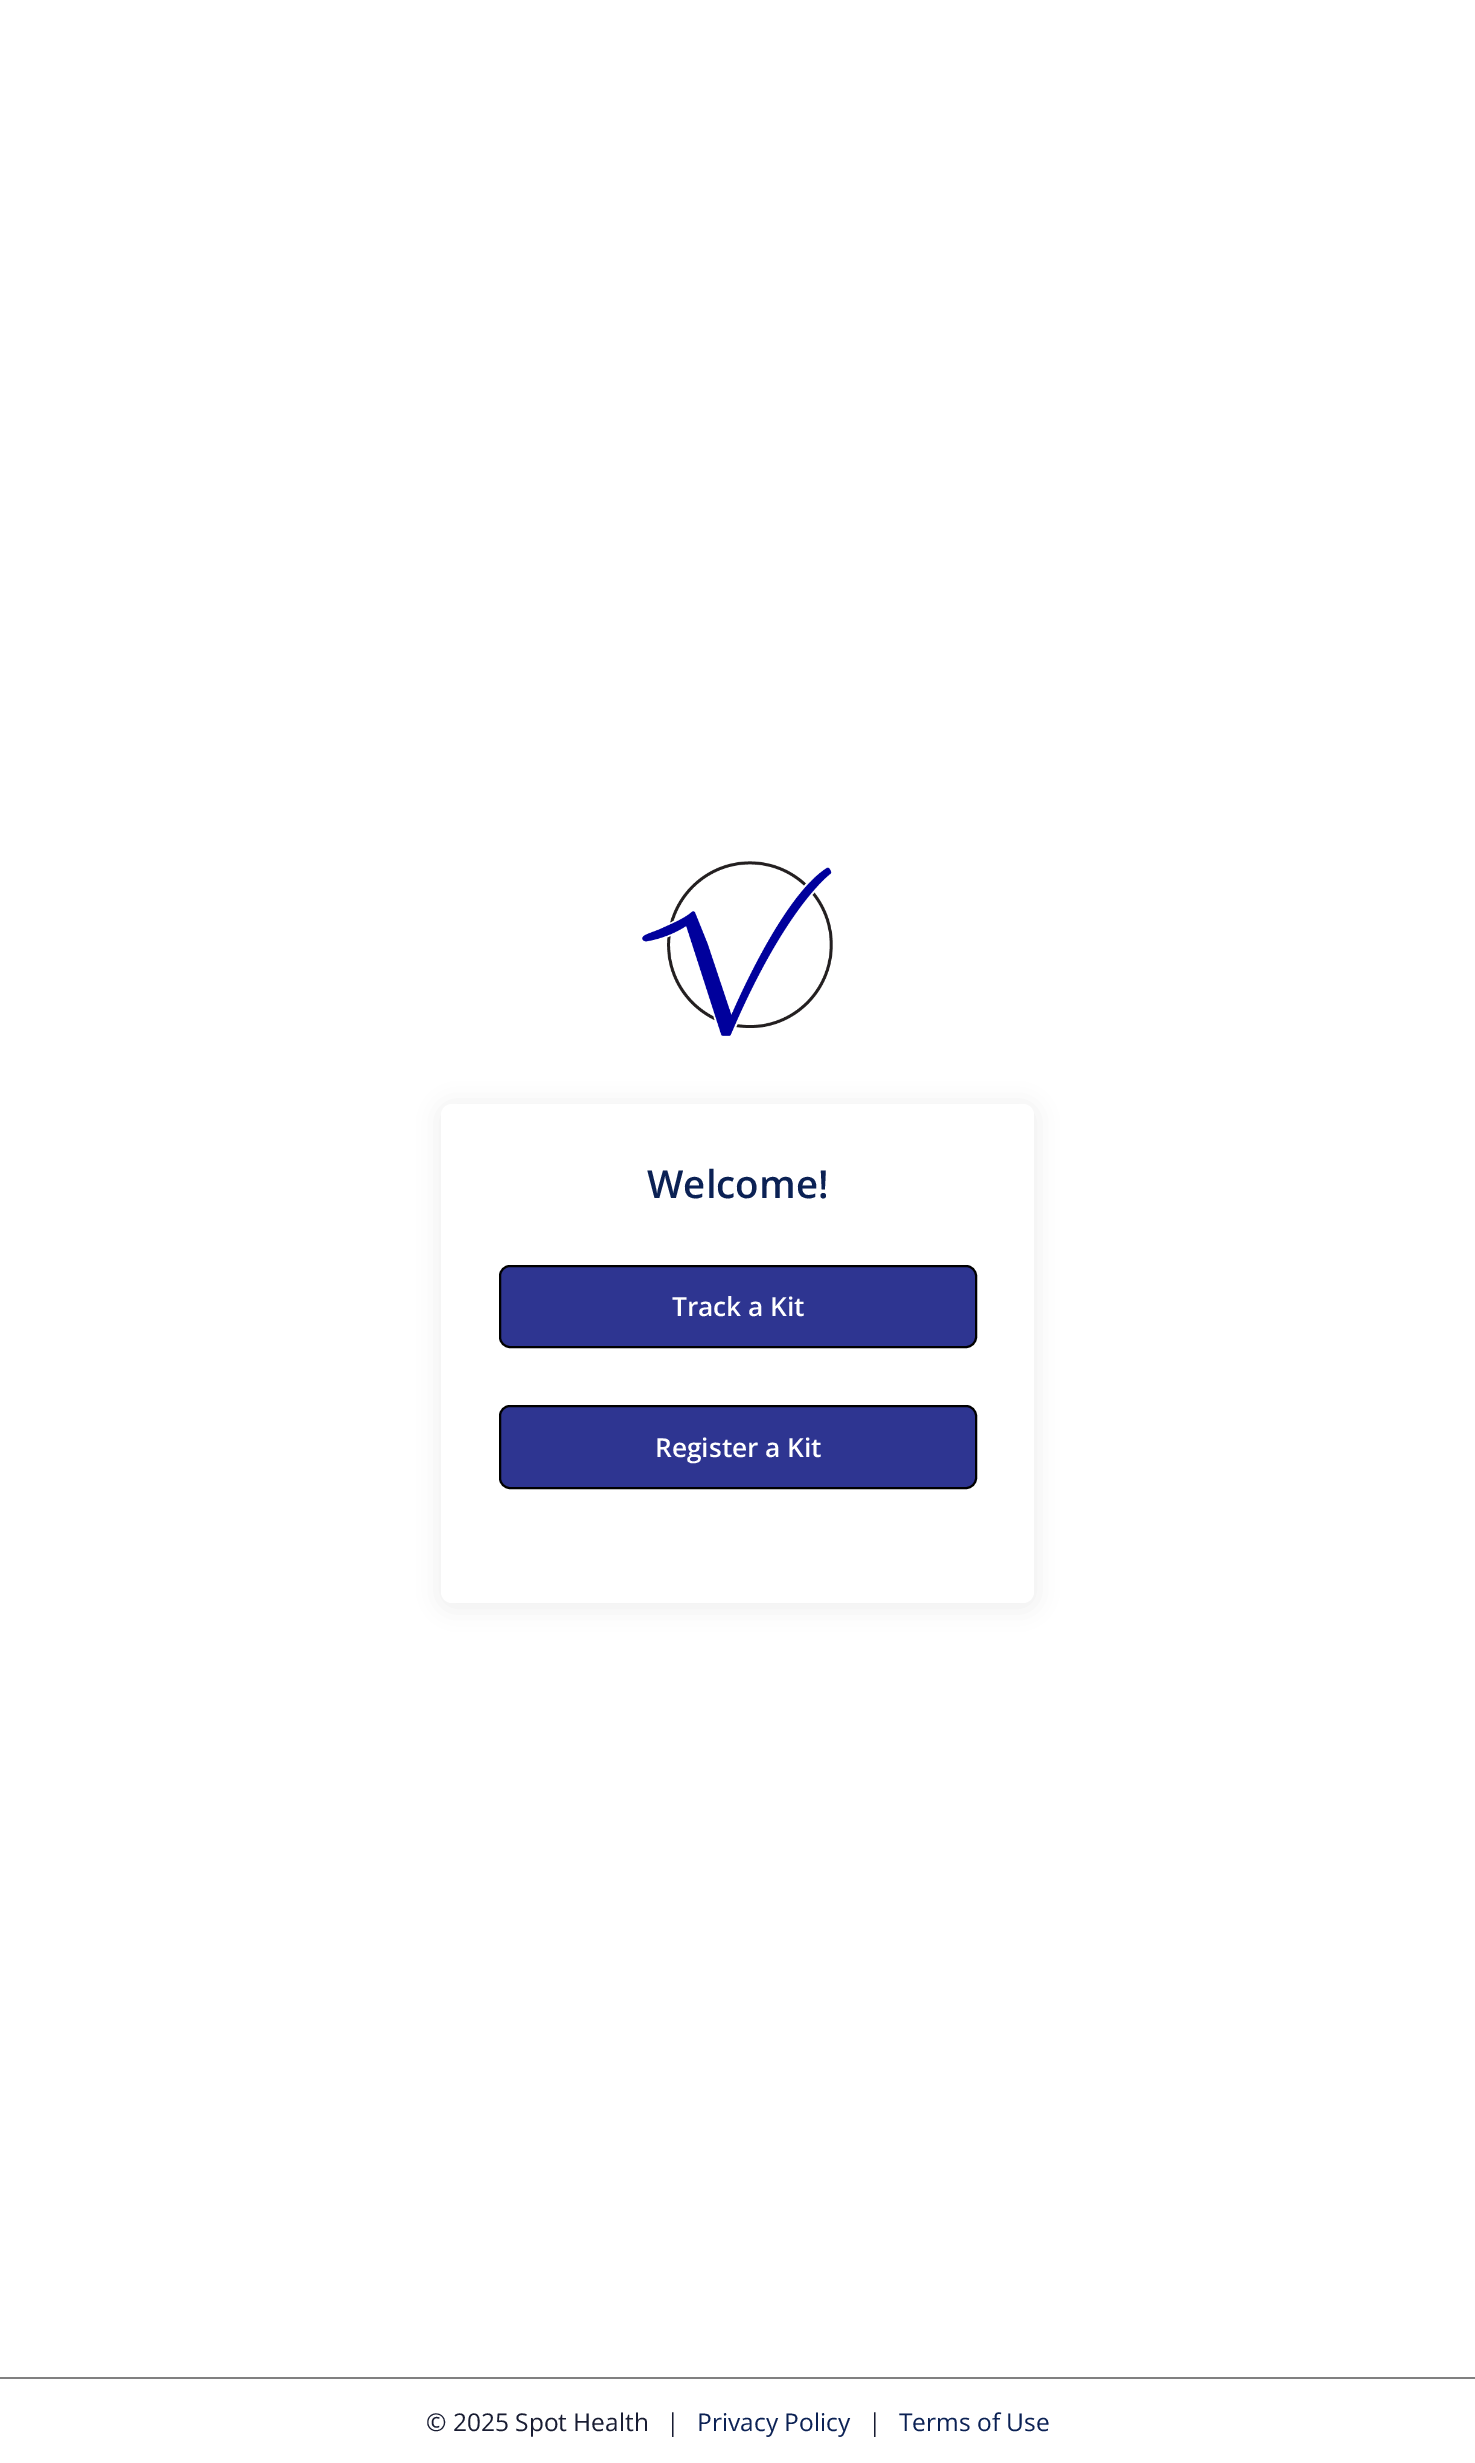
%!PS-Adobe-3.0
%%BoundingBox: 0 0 1475 2463
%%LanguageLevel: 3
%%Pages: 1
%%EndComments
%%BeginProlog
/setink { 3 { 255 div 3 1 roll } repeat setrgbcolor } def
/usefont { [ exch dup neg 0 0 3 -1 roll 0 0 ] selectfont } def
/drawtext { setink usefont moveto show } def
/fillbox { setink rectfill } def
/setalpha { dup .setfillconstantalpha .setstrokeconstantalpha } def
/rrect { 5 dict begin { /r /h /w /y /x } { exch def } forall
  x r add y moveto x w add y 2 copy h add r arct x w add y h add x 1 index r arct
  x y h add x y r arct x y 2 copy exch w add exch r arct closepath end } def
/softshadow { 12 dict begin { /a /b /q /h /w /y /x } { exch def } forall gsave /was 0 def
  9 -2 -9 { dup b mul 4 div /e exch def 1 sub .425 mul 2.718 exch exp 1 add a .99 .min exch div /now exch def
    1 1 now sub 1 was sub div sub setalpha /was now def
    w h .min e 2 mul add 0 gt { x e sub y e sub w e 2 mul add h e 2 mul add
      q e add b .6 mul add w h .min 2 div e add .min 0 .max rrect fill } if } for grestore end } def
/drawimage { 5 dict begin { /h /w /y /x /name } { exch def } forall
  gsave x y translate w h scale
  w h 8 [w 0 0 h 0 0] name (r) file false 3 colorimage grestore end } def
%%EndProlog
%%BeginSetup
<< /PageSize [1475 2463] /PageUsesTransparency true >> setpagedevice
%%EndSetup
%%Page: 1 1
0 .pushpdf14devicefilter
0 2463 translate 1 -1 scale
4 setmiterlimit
0 0 1475 2463 255 255 255 fillbox
(assets/img1.rgb) 642 861 191 175 drawimage
0 0 0 setink
436 1101 604 511 16 11.5 0.05 softshadow
255 255 255 setink
441 1104 593 499 11 rrect fill
(Welcome!) 647 1198 /OpenSans-SemiBold 38.5 11 33 84 drawtext
46 53 145 setink
500 1266 476 81 10 rrect gsave fill grestore
0 0 0 setink
2 setlinewidth
stroke
(Track a Kit) 672 1316 /OpenSans-SemiBold 26.25 255 255 255 drawtext
46 53 145 setink
500 1406 476 82 10 rrect gsave fill grestore
0 0 0 setink
stroke
(Register a Kit) 655 1457 /OpenSans-SemiBold 26.25 255 255 255 drawtext
0 2377 1475 2 128 128 128 fillbox
(© 2025 Spot Health) 426 2431 /OpenSans-Regular 24.5 24 28 50 drawtext
(|) 666 2431 /OpenSans-Regular 24.5 24 28 50 drawtext
(Privacy Policy) 697 2431 /OpenSans-Regular 24.5 11 33 84 drawtext
(|) 868 2431 /OpenSans-Regular 24.5 24 28 50 drawtext
(Terms of Use) 899 2431 /OpenSans-Regular 24.5 11 33 84 drawtext
.poppdf14devicefilter showpage
%%EOF
